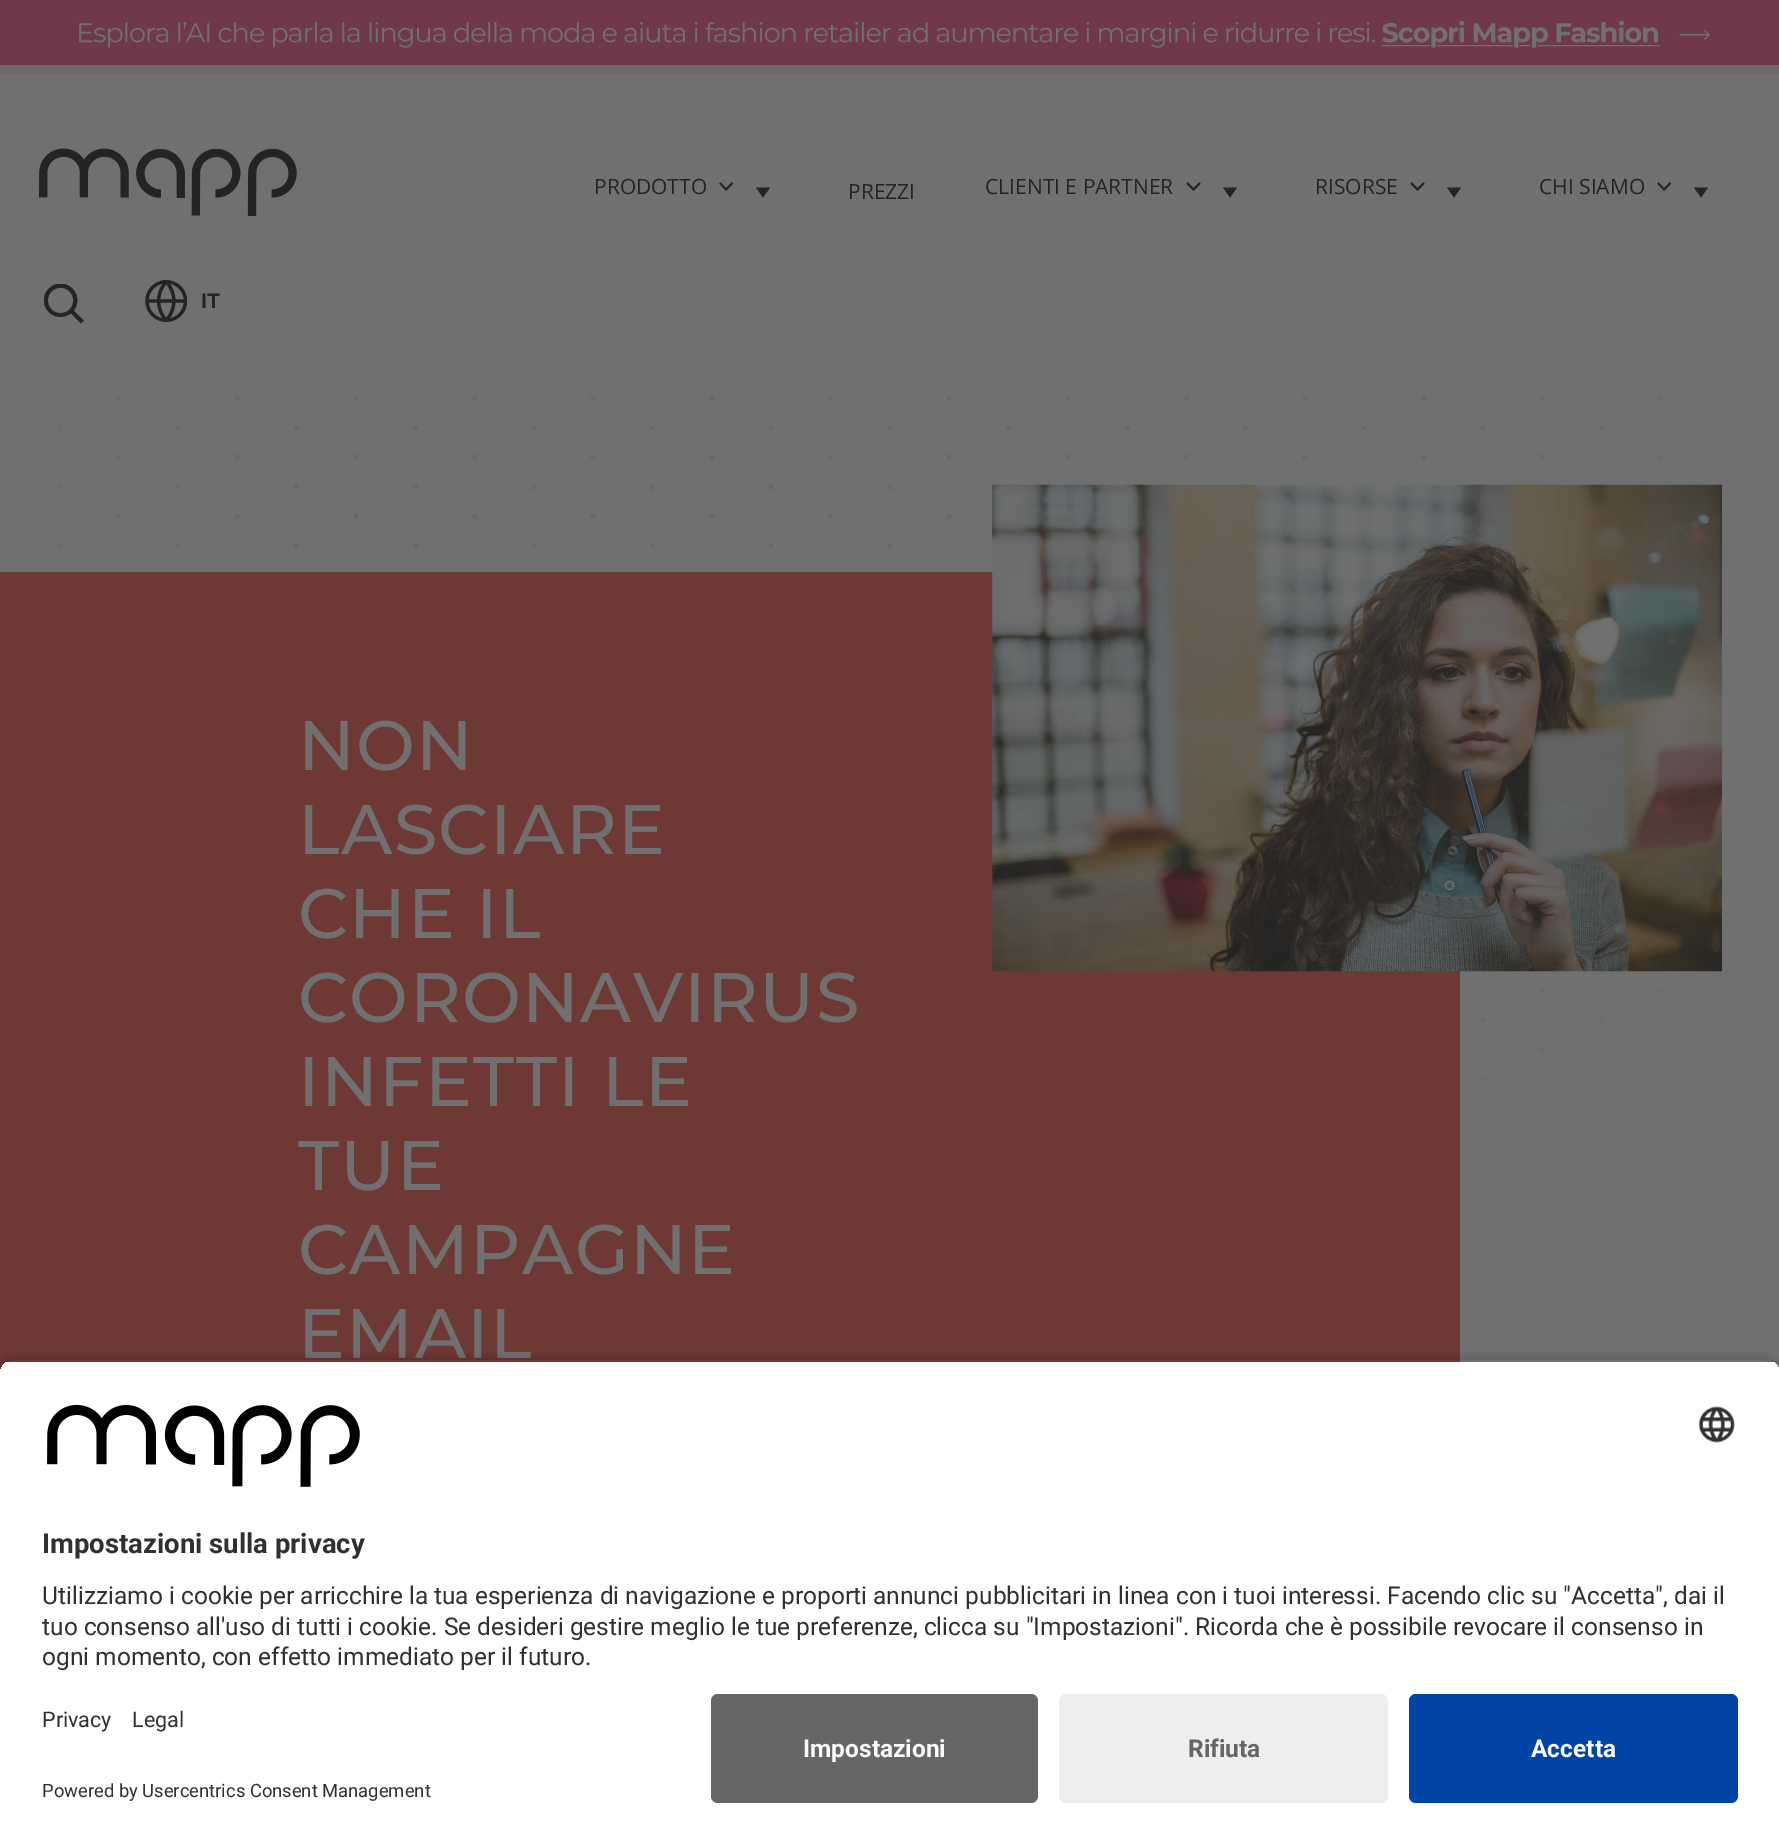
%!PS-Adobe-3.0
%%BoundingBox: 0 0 1779 1844
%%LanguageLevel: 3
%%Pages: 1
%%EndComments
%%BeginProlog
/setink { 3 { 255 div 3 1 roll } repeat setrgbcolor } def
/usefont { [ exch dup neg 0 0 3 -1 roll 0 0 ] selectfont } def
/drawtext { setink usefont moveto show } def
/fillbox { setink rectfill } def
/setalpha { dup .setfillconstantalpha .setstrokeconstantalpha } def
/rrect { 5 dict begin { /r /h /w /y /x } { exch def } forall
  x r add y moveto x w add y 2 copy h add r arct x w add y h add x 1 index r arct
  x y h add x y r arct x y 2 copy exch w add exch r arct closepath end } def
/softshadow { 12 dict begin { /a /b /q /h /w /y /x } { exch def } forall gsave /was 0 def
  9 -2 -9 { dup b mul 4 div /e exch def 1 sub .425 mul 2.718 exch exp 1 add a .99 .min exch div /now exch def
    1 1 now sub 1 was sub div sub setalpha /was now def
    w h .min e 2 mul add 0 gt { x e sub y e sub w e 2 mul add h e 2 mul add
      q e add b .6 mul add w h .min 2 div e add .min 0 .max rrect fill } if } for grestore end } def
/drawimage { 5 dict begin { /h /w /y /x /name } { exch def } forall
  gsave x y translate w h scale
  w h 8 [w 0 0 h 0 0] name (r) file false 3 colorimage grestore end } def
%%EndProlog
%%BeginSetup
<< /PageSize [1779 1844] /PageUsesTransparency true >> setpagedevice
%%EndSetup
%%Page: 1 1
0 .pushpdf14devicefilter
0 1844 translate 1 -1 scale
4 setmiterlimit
0 0 1779 1844 112 112 112 fillbox
0 0 1779 65 111 56 75 fillbox
0 65 1779 9 107 107 107 fillbox
(assets/img1.rgb) 79 20 1631 28 drawimage
(assets/img2.rgb) 38 148 259 68 drawimage
(PRODOTTO) 594 194 /OpenSans-Regular 21 36 36 36 drawtext
1.8 setlinewidth
720 183 moveto 726 189.5 lineto 732.5 183 lineto stroke
770 187.5 moveto 763 197.5 lineto 756 187.5 lineto closepath fill
(PREZZI) 848 199 /OpenSans-Regular 21 36 36 36 drawtext
(CLIENTI E PARTNER) 985 194 /OpenSans-Regular 21 36 36 36 drawtext
1187 183 moveto 1193.5 189.5 lineto 1200 183 lineto stroke
1237 187.5 moveto 1230 197.5 lineto 1223 187.5 lineto closepath fill
(RISORSE) 1315 194 /OpenSans-Regular 21 36 36 36 drawtext
1411 183 moveto 1417.5 189.5 lineto 1424 183 lineto stroke
1461 187.5 moveto 1454 197.5 lineto 1447 187.5 lineto closepath fill
(CHI SIAMO) 1539 194 /OpenSans-Regular 21 36 36 36 drawtext
1658 183 moveto 1664 189.5 lineto 1670.5 183 lineto stroke
1708 187.5 moveto 1701 197.5 lineto 1694 187.5 lineto closepath fill
(assets/img3.rgb) 44 284 40 40 drawimage
(assets/img4.rgb) 145 280 42 42 drawimage
(IT) 201 308 /LiberationSans-Bold 21 36 36 36 drawtext
(assets/img5.rgb) 0 383 1779 788 drawimage
0 572 1460 802 110 56 53 fillbox
/Montserrat-Medium 70 usefont
112 112 112 setink
298 770 moveto 1.4 0 (NON) ashow
298 854 moveto 1.4 0 (LASCIARE) ashow
298 938 moveto 1.4 0 (CHE IL) ashow
298 1022 moveto 1.4 0 (CORONAVIRUS) ashow
298 1106 moveto 1.4 0 (INFETTI LE) ashow
298 1190 moveto 1.4 0 (TUE) ashow
298 1274 moveto 1.4 0 (CAMPAGNE) ashow
298 1358 moveto 1.4 0 (EMAIL) ashow
(assets/img6.rgb) 992 484 730 488 drawimage
gsave
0 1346 moveto 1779 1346 lineto 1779 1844 lineto 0 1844 lineto closepath 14 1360 moveto 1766 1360 lineto 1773.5 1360 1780 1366.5 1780 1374 curveto 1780 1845 lineto 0 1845 lineto 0 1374 lineto 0 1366.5 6.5 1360 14 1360 curveto closepath eoclip newpath
0 0 0 setink
0 1365 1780 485 14 6 0.8 softshadow
grestore
gsave
14 1360 moveto 1766 1360 lineto 1773.5 1360 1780 1366.5 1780 1374 curveto 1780 1680 lineto 0 1680 lineto 0 1374 lineto 0 1366.5 6.5 1360 14 1360 curveto closepath clip newpath
0 1362 1779 318 255 255 255 fillbox
grestore
(assets/img7.rgb) 47 1404 313 83 drawimage
(assets/img8.rgb) 1698 1406 37 37 drawimage
(Impostazioni sulla privacy) 42 1553 /Roboto-Bold 27.5 48 48 48 drawtext
(Utilizziamo i cookie per arricchire la tua esperienza di navigazione e proporti annunci pubblicitari in linea con i tuoi interessi. Facendo clic su "Accetta", dai il) 42 1604 /Roboto-Regular 24.5 48 48 48 drawtext
(tuo consenso all'uso di tutti i cookie. Se desideri gestire meglio le tue preferenze, clicca su "Impostazioni". Ricorda che è possibile revocare il consenso in) 42 1635 /Roboto-Regular 24.5 48 48 48 drawtext
(ogni momento, con effetto immediato per il futuro.) 42 1665 /Roboto-Regular 24.5 48 48 48 drawtext
0 1680 1779 164 255 255 255 fillbox
(Privacy) 42 1727 /Roboto-Regular 21.5 48 48 48 drawtext
(Legal) 132 1727 /Roboto-Regular 21.5 48 48 48 drawtext
(Powered by Usercentrics Consent Management) 42 1797 /Roboto-Regular 18.4 48 48 48 drawtext
102 102 102 setink
711 1694 327 109 7 rrect fill
(Impostazioni) 803 1757 /Roboto-Bold 24.5 250 250 250 drawtext
238 238 238 setink
1059 1694 329 109 7 rrect fill
(Rifiuta) 1188 1757 /Roboto-Bold 24.5 102 102 102 drawtext
0 69 165 setink
1409 1694 329 109 7 rrect fill
(Accetta) 1531 1757 /Roboto-Bold 24.5 250 250 250 drawtext
.poppdf14devicefilter showpage
%%EOF
